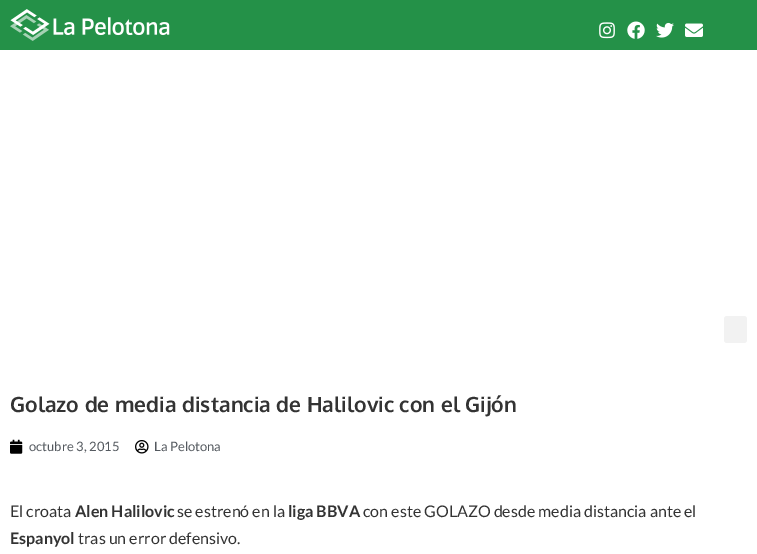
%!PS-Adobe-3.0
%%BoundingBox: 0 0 757 554
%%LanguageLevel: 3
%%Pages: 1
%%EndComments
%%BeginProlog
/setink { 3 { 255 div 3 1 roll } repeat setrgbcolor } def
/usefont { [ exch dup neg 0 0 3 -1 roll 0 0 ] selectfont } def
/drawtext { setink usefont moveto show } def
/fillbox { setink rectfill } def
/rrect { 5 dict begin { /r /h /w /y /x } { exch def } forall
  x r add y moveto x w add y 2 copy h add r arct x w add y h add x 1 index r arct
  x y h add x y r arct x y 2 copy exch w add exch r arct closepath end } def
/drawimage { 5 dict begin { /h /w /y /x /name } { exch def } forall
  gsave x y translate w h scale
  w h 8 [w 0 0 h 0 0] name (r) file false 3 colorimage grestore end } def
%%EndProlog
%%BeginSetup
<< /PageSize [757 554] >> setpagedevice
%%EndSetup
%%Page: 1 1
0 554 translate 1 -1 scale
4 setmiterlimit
0 0 757 554 255 255 255 fillbox
0 0 757 50 36 145 72 fillbox
(assets/img1.rgb) 10 9 160 32 drawimage
(assets/img2.rgb) 599 22 16 17 drawimage
(assets/img3.rgb) 627 21 18 18 drawimage
(assets/img4.rgb) 656 22 18 16 drawimage
(assets/img5.rgb) 685 23 18 14 drawimage
242 242 242 setink
724 316 23 27 3 rrect fill
(Golazo de media distancia de Halilovic con el Gijón) 10 412 /Oxygen-Bold 21 51 51 51 drawtext
(assets/img6.rgb) 10 439 13 15 drawimage
(octubre 3, 2015) 29 451 /Lato-Regular 13 84 89 95 drawtext
(assets/img7.rgb) 135 440 14 14 drawimage
(La Pelotona) 154 451 /Lato-Regular 13 84 89 95 drawtext
(El croata) 10 517 /Lato-Regular 16 51 51 51 drawtext
(Alen Halilovic) 75 517 /Lato-Bold 16 51 51 51 drawtext
(se estrenó en la) 177 517 /Lato-Regular 16 51 51 51 drawtext
(liga BBVA) 288 517 /Lato-Bold 16 51 51 51 drawtext
(con este GOLAZO desde media distancia ante el) 363 517 /Lato-Regular 16 51 51 51 drawtext
(Espanyol) 10 544 /Lato-Bold 16 51 51 51 drawtext
(tras un error defensivo.) 78 544 /Lato-Regular 16 51 51 51 drawtext
showpage
%%EOF
